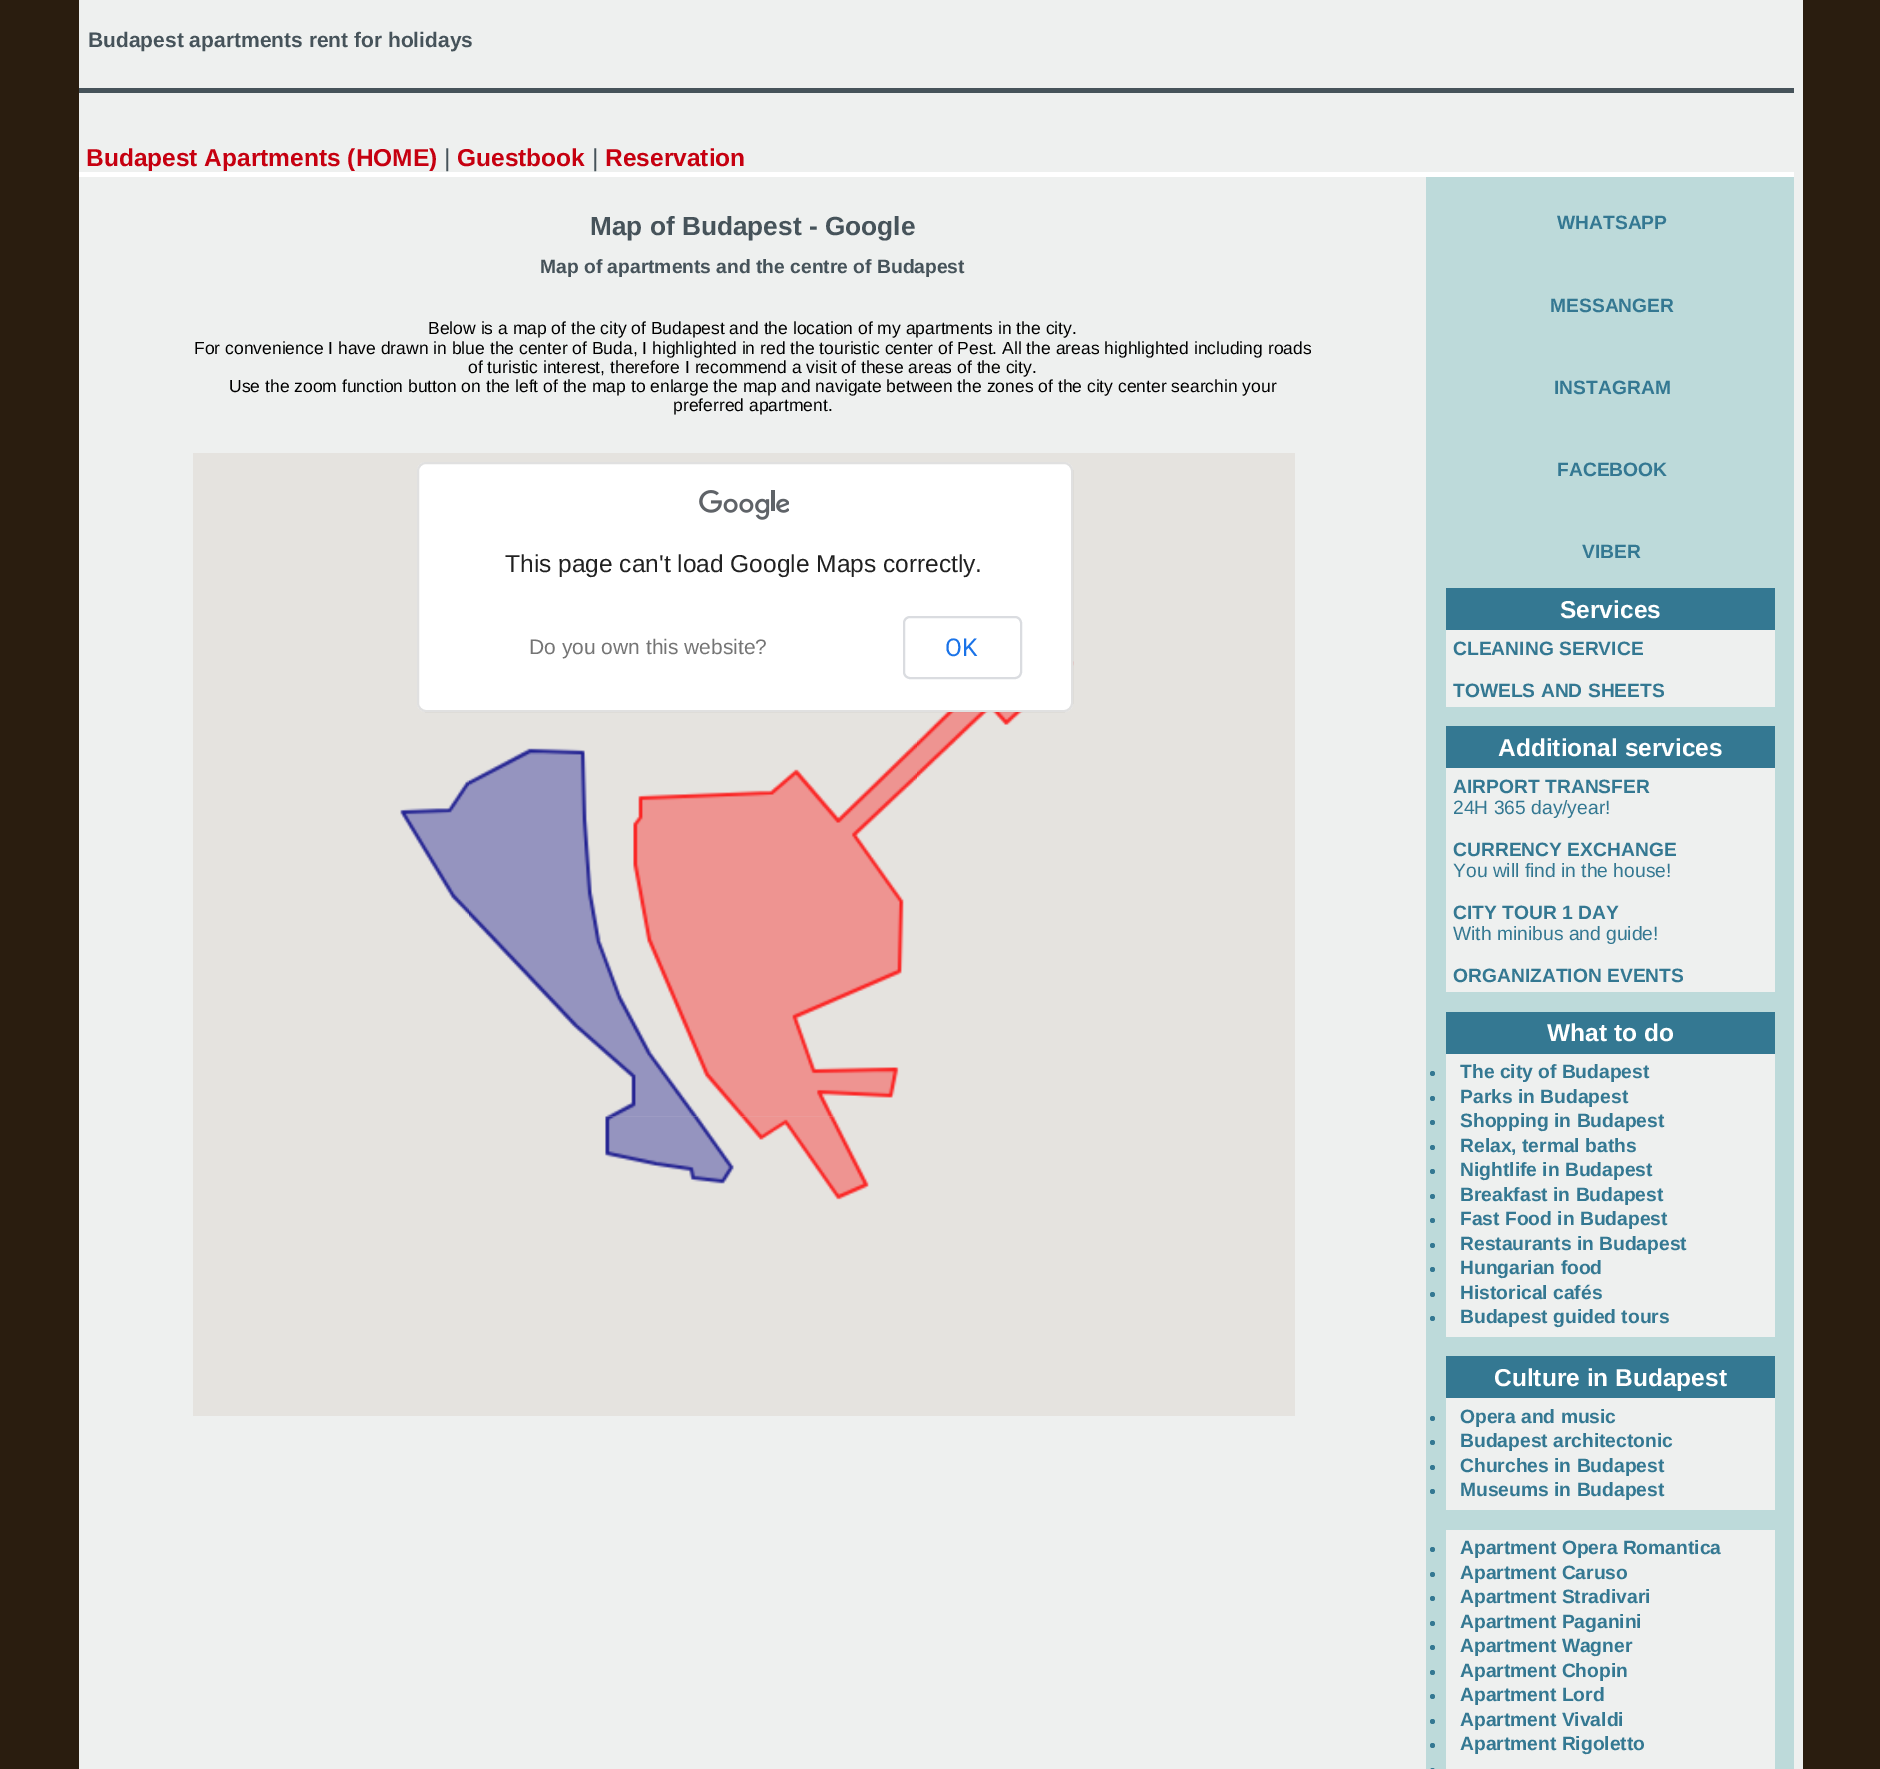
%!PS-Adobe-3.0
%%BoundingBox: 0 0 1880 1769
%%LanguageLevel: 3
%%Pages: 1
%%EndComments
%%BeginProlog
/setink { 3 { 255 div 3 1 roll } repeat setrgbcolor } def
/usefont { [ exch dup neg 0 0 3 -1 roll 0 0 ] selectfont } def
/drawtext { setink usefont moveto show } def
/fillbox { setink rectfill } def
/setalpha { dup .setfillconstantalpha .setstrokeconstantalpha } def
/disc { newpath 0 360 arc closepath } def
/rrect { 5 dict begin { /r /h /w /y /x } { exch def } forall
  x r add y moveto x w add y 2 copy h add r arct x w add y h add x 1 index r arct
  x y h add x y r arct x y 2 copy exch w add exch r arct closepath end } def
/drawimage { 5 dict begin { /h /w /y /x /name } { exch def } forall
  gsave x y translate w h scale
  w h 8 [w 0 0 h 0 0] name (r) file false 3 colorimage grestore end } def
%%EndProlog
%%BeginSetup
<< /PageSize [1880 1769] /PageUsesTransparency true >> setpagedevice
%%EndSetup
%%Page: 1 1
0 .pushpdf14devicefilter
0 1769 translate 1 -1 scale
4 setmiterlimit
0 0 1880 1769 42 29 15 fillbox
79 0 1724 1769 238 240 239 fillbox
(Budapest apartments rent for holidays) 88 47 /LiberationSans-Bold 21 70 83 90 drawtext
79 88 1715 5 70 83 90 fillbox
(Budapest Apartments \(HOME\)) 86 166 /LiberationSans-Bold 24.5 198 0 16 drawtext
(|) 444 166 /LiberationSans-Regular 24.5 70 83 90 drawtext
(Guestbook) 457 166 /LiberationSans-Bold 24.5 198 0 16 drawtext
(|) 592 166 /LiberationSans-Regular 24.5 70 83 90 drawtext
(Reservation) 605 166 /LiberationSans-Bold 24.5 198 0 16 drawtext
79 172 1715 5 255 255 255 fillbox
(Map of Budapest - Google) 590 235 /LiberationSans-Bold 26.25 70 83 90 drawtext
(Map of apartments and the centre of Budapest) 540 273 /LiberationSans-Bold 19.25 70 83 90 drawtext
(Below is a map of the city of Budapest and the location of my apartments in the city.) 428 334 /LiberationSans-Regular 17.5 0 0 0 drawtext
(For convenience I have drawn in blue the center of Buda, I highlighted in red the touristic center of Pest. All the areas highlighted including roads) 194 354 /LiberationSans-Regular 17.5 0 0 0 drawtext
(of turistic interest, therefore I recommend a visit of these areas of the city.) 468 373 /LiberationSans-Regular 17.5 0 0 0 drawtext
(Use the zoom function button on the left of the map to enlarge the map and navigate between the zones of the city center searchin your) 229 392 /LiberationSans-Regular 17.5 0 0 0 drawtext
(preferred apartment.) 673 411 /LiberationSans-Regular 17.5 0 0 0 drawtext
193 453 1102 963 229 227 223 fillbox
(assets/img1.rgb) 1073 661 1 5 drawimage
(assets/img2.rgb) 400 780 69 136 drawimage
(assets/img3.rgb) 469 741 448 376 drawimage
(assets/img4.rgb) 917 712 106 66 drawimage
(assets/img5.rgb) 605 1116 264 84 drawimage
255 255 255 setink
417 462 656 250 9 rrect fill
0.12 setalpha
0 0 0 setink
2 setlinewidth
418 463 654 248 8 rrect stroke
1 setalpha
(assets/img6.rgb) 699 490 90 30 drawimage
(This page can't load Google Maps correctly.) 505 572 /LiberationSans-Regular 24.5 33 33 33 drawtext
(Do you own this website?) 529 654 /LiberationSans-Regular 21 117 117 117 drawtext
218 220 224 setink
904 617 117 61 6 rrect stroke
(OK) 945 656 /Roboto-Regular 24.5 26 115 232 drawtext
1426 177 368 1592 189 218 218 fillbox
(WHATSAPP) 1557 229 /LiberationSans-Bold 19.25 52 120 146 drawtext
(MESSANGER) 1550 312 /LiberationSans-Bold 19.25 52 120 146 drawtext
(INSTAGRAM) 1554 394 /LiberationSans-Bold 19.25 52 120 146 drawtext
(FACEBOOK) 1557 476 /LiberationSans-Bold 19.25 52 120 146 drawtext
(VIBER) 1582 558 /LiberationSans-Bold 19.25 52 120 146 drawtext
1446 588 329 42 52 120 146 fillbox
(Services) 1560 618 /LiberationSans-Bold 24.5 255 255 255 drawtext
1446 630 329 77 238 240 239 fillbox
(CLEANING SERVICE) 1453 655 /LiberationSans-Bold 19.25 52 120 146 drawtext
(TOWELS AND SHEETS) 1453 697 /LiberationSans-Bold 19.25 52 120 146 drawtext
1446 726 329 42 52 120 146 fillbox
(Additional services) 1498 756 /LiberationSans-Bold 24.5 255 255 255 drawtext
1446 768 329 224 238 240 239 fillbox
(AIRPORT TRANSFER) 1453 793 /LiberationSans-Bold 19.25 52 120 146 drawtext
(24H 365 day/year!) 1453 814 /LiberationSans-Regular 19.25 52 120 146 drawtext
(CURRENCY EXCHANGE) 1453 856 /LiberationSans-Bold 19.25 52 120 146 drawtext
(You will find in the house!) 1453 877 /LiberationSans-Regular 19.25 52 120 146 drawtext
(CITY TOUR 1 DAY) 1453 919 /LiberationSans-Bold 19.25 52 120 146 drawtext
(With minibus and guide!) 1453 940 /LiberationSans-Regular 19.25 52 120 146 drawtext
(ORGANIZATION EVENTS) 1453 982 /LiberationSans-Bold 19.25 52 120 146 drawtext
1446 1012 329 42 52 120 146 fillbox
(What to do) 1547 1041 /LiberationSans-Bold 24.5 255 255 255 drawtext
1446 1054 329 283 238 240 239 fillbox
52 120 146 setink
1432.5 1073.5 2.5 disc fill
(The city of Budapest) 1460 1078 /LiberationSans-Bold 19.25 52 120 146 drawtext
1432.5 1098.5 2.5 disc fill
(Parks in Budapest) 1460 1103 /LiberationSans-Bold 19.25 52 120 146 drawtext
1432.5 1122.5 2.5 disc fill
(Shopping in Budapest) 1460 1127 /LiberationSans-Bold 19.25 52 120 146 drawtext
1432.5 1147.5 2.5 disc fill
(Relax, termal baths) 1460 1152 /LiberationSans-Bold 19.25 52 120 146 drawtext
1432.5 1171.5 2.5 disc fill
(Nightlife in Budapest) 1460 1176 /LiberationSans-Bold 19.25 52 120 146 drawtext
1432.5 1196.5 2.5 disc fill
(Breakfast in Budapest) 1460 1201 /LiberationSans-Bold 19.25 52 120 146 drawtext
1432.5 1220.5 2.5 disc fill
(Fast Food in Budapest) 1460 1225 /LiberationSans-Bold 19.25 52 120 146 drawtext
1432.5 1245.5 2.5 disc fill
(Restaurants in Budapest) 1460 1250 /LiberationSans-Bold 19.25 52 120 146 drawtext
1432.5 1269.5 2.5 disc fill
(Hungarian food) 1460 1274 /LiberationSans-Bold 19.25 52 120 146 drawtext
1432.5 1294.5 2.5 disc fill
(Historical cafés) 1460 1299 /LiberationSans-Bold 19.25 52 120 146 drawtext
1432.5 1318.5 2.5 disc fill
(Budapest guided tours) 1460 1323 /LiberationSans-Bold 19.25 52 120 146 drawtext
1446 1356 329 42 52 120 146 fillbox
(Culture in Budapest) 1494 1386 /LiberationSans-Bold 24.5 255 255 255 drawtext
1446 1398 329 112 238 240 239 fillbox
52 120 146 setink
1432.5 1418.5 2.5 disc fill
(Opera and music) 1460 1423 /LiberationSans-Bold 19.25 52 120 146 drawtext
1432.5 1442.5 2.5 disc fill
(Budapest architectonic) 1460 1447 /LiberationSans-Bold 19.25 52 120 146 drawtext
1432.5 1467.5 2.5 disc fill
(Churches in Budapest) 1460 1472 /LiberationSans-Bold 19.25 52 120 146 drawtext
1432.5 1491.5 2.5 disc fill
(Museums in Budapest) 1460 1496 /LiberationSans-Bold 19.25 52 120 146 drawtext
1446 1530 329 239 238 240 239 fillbox
52 120 146 setink
1432.5 1549.5 2.5 disc fill
(Apartment Opera Romantica) 1460 1554 /LiberationSans-Bold 19.25 52 120 146 drawtext
1432.5 1574.5 2.5 disc fill
(Apartment Caruso) 1460 1579 /LiberationSans-Bold 19.25 52 120 146 drawtext
1432.5 1598.5 2.5 disc fill
(Apartment Stradivari) 1460 1603 /LiberationSans-Bold 19.25 52 120 146 drawtext
1432.5 1623.5 2.5 disc fill
(Apartment Paganini) 1460 1628 /LiberationSans-Bold 19.25 52 120 146 drawtext
1432.5 1647.5 2.5 disc fill
(Apartment Wagner) 1460 1652 /LiberationSans-Bold 19.25 52 120 146 drawtext
1432.5 1672.5 2.5 disc fill
(Apartment Chopin) 1460 1677 /LiberationSans-Bold 19.25 52 120 146 drawtext
1432.5 1696.5 2.5 disc fill
(Apartment Lord) 1460 1701 /LiberationSans-Bold 19.25 52 120 146 drawtext
1432.5 1721.5 2.5 disc fill
(Apartment Vivaldi) 1460 1726 /LiberationSans-Bold 19.25 52 120 146 drawtext
1432.5 1745.5 2.5 disc fill
(Apartment Rigoletto) 1460 1750 /LiberationSans-Bold 19.25 52 120 146 drawtext
1430 1768 5 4 2.5 rrect fill
.poppdf14devicefilter showpage
%%EOF
